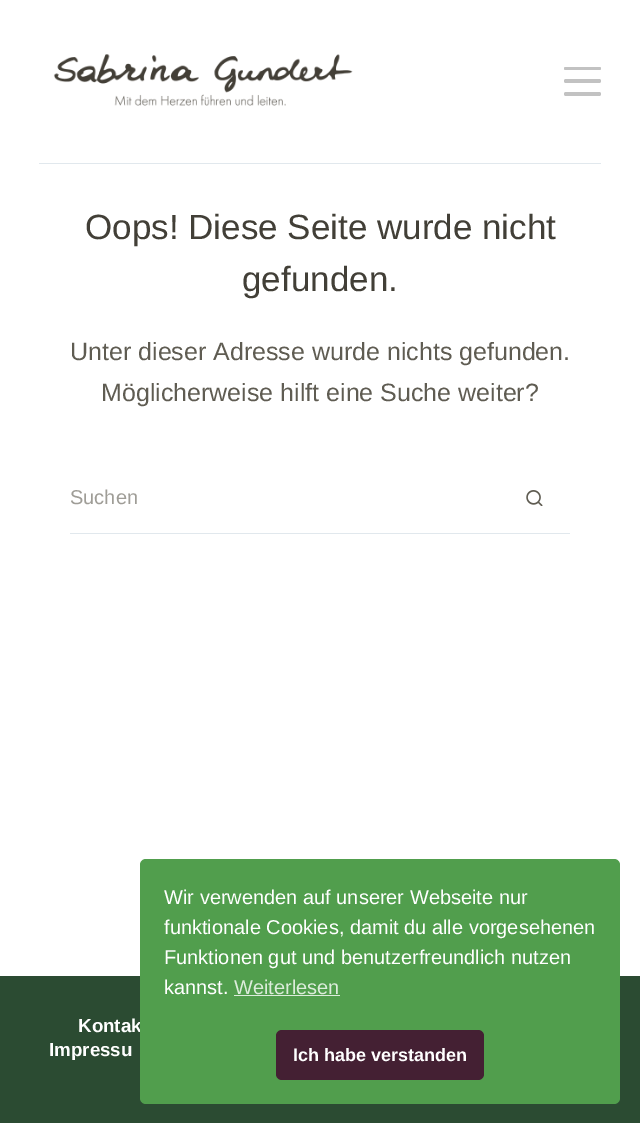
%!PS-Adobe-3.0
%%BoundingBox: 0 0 640 1123
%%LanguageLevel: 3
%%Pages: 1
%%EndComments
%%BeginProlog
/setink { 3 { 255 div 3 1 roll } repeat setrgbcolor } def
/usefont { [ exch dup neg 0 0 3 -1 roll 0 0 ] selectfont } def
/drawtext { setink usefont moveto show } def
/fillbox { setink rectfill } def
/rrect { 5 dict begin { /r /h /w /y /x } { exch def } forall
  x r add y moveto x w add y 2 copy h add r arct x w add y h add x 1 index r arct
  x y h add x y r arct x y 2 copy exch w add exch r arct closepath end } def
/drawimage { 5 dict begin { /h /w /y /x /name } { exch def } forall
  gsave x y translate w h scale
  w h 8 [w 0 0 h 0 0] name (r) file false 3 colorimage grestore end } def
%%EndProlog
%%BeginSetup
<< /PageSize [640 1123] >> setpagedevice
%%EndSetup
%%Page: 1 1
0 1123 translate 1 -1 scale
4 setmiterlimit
0 0 640 1123 255 255 255 fillbox
39 163 562 1 225 232 237 fillbox
(assets/img1.rgb) 53 54 300 52 drawimage
194 194 194 setink
564 67 37 3 1.5 rrect fill
564 79 37 4 2 rrect fill
564 92 37 4 2 rrect fill
(Oops! Diese Seite wurde nicht) 85 239 /LiberationSans-Regular 35 66 63 55 drawtext
(gefunden.) 242 291 /LiberationSans-Regular 35 66 63 55 drawtext
(Unter dieser Adresse wurde nichts gefunden.) 70 360 /LiberationSans-Regular 25 95 92 82 drawtext
(Möglicherweise hilft eine Suche weiter?) 101 401 /LiberationSans-Regular 25 95 92 82 drawtext
70 533 500 1 225 232 237 fillbox
(Suchen) 70 504 /LiberationSans-Regular 20 159 157 151 drawtext
(assets/img2.rgb) 526 490 17 16 drawimage
0 976 640 147 43 75 50 fillbox
(Kontak) 78 1032 /LiberationSans-Bold 18.75 255 255 255 drawtext
(Impressu) 49 1056 /LiberationSans-Bold 18.75 255 255 255 drawtext
81 158 77 setink
140 859 480 245 6 rrect fill
(Wir verwenden auf unserer Webseite nur) 164 904 /LiberationSans-Regular 20 255 255 255 drawtext
(funktionale Cookies, damit du alle vorgesehenen) 164 934 /LiberationSans-Regular 20 255 255 255 drawtext
(Funktionen gut und benutzerfreundlich nutzen) 164 964 /LiberationSans-Regular 20 255 255 255 drawtext
(kannst.) 164 994 /LiberationSans-Regular 20 255 255 255 drawtext
(Weiterlesen) 234 994 /LiberationSans-Regular 20 220 236 219 drawtext
234 995 106 1 220 236 219 fillbox
68 32 51 setink
276 1030 208 50 6 rrect fill
(Ich habe verstanden) 293 1061 /LiberationSans-Bold 18 255 255 255 drawtext
showpage
%%EOF
